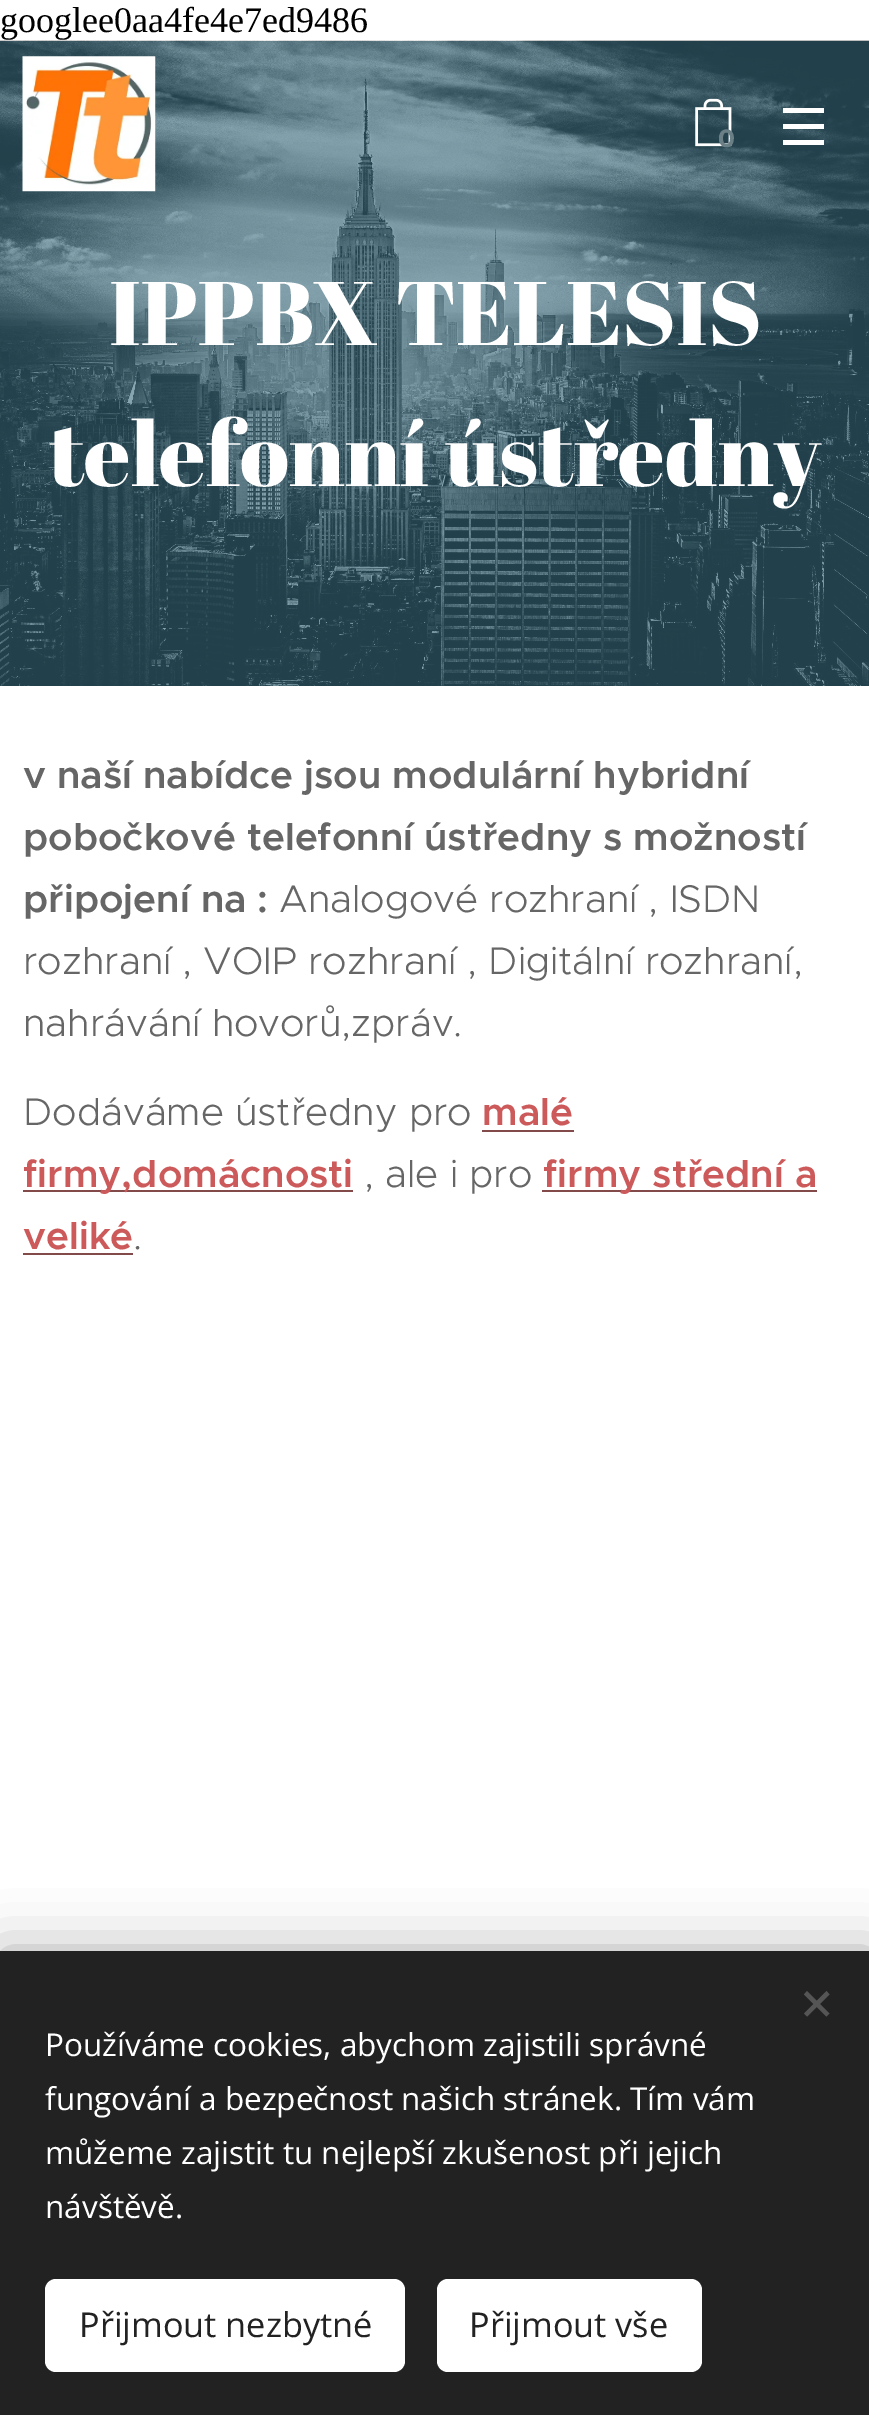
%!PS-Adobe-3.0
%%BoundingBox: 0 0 869 2415
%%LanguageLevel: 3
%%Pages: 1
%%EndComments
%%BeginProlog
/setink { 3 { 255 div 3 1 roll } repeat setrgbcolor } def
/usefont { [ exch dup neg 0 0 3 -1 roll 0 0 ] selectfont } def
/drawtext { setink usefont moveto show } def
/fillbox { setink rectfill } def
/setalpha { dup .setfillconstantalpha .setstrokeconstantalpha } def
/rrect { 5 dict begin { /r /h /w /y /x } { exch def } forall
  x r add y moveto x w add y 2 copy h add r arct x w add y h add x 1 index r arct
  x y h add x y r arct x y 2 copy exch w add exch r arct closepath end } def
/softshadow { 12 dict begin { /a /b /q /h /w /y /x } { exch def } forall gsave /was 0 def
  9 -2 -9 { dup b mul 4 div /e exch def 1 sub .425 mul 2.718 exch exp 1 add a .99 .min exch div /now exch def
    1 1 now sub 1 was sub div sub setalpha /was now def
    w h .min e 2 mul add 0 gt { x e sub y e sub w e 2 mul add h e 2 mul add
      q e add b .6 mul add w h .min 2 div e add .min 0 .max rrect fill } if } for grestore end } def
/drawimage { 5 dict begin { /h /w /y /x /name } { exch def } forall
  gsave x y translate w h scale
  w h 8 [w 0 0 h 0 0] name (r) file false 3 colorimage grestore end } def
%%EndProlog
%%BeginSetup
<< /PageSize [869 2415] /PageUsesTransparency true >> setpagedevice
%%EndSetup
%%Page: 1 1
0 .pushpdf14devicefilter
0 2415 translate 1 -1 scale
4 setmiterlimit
0 0 869 2415 255 255 255 fillbox
(googlee0aa4fe4e7ed9486) 0 32 /LiberationSerif-Regular 36 0 0 0 drawtext
(assets/img3.rgb) 0 40 869 646 drawimage
(assets/img1.rgb) 22 56 134 136 drawimage
(assets/img2.rgb) 695 98 37 49 drawimage
(0) 718 147 /Montserrat-Bold 25 106 127 134 drawtext
783 124 41 5 255 255 255 fillbox
783 108 41 5 255 255 255 fillbox
783 140 41 5 255 255 255 fillbox
(IPPBX TELESIS) 109 345 /AbrilFatface-Regular 90 255 255 255 drawtext
(telefonní ústředny) 49 486 /AbrilFatface-Regular 90 255 255 255 drawtext
(v naší nabídce jsou modulární hybridní) 23 788 /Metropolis-SemiBold 38.7 102 102 102 drawtext
(pobočkové telefonní ústředny s možností) 23 850 /Metropolis-SemiBold 38.7 102 102 102 drawtext
(připojení na :) 23 912 /Metropolis-SemiBold 38.7 102 102 102 drawtext
(Analogové rozhraní , ISDN) 279 912 /Metropolis-Light 38.7 102 102 102 drawtext
(rozhraní , VOIP rozhraní , Digitální rozhraní,) 23 974 /Metropolis-Light 38.7 102 102 102 drawtext
(nahrávání hovorů,zpráv.) 23 1036 /Metropolis-Light 38.7 102 102 102 drawtext
(Dodáváme ústředny pro) 23 1125 /Metropolis-Light 38.7 102 102 102 drawtext
(malé) 482 1125 /Metropolis-SemiBold 38.7 204 90 90 drawtext
482 1130 92 2 131 74 74 fillbox
23 1190 330 2 131 74 74 fillbox
(firmy,domácnosti) 23 1187 /Metropolis-SemiBold 38.7 204 90 90 drawtext
(, ale i pro) 364 1187 /Metropolis-Light 38.7 102 102 102 drawtext
542 1190 275 2 131 74 74 fillbox
(firmy střední a) 543 1187 /Metropolis-SemiBold 38.7 204 90 90 drawtext
(veliké) 23 1249 /Metropolis-SemiBold 38.7 204 90 90 drawtext
23 1253 110 2 131 74 74 fillbox
(.) 133 1249 /Metropolis-Light 38.7 102 102 102 drawtext
0 0 0 setink
0 1951 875 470 0 28 0.33 softshadow
0 1951 869 464 34 34 34 fillbox
85 85 85 setink
804 2013.5 moveto 826.5 1991 lineto 829.5 1994.5 lineto 807 2016.5 lineto closepath fill
807 1991 moveto 829.5 2013.5 lineto 826.5 2016.5 lineto 804 1994.5 lineto closepath fill
(Používáme cookies, abychom zajistili správné) 45 2056 /OpenSans-Regular 31.5 255 255 255 drawtext
(fungování a bezpečnost našich stránek. Tím vám) 45 2110 /OpenSans-Regular 31.5 255 255 255 drawtext
(můžeme zajistit tu nejlepší zkušenost při jejich) 45 2164 /OpenSans-Regular 31.5 255 255 255 drawtext
(návštěvě.) 45 2218 /OpenSans-Regular 31.5 255 255 255 drawtext
45 2279 360 93 11 rrect fill
(Přijmout nezbytné) 79 2337 /OpenSans-Regular 34.25 34 34 34 drawtext
255 255 255 setink
437 2279 265 93 11 rrect fill
(Přijmout vše) 469 2337 /OpenSans-Regular 34.25 34 34 34 drawtext
.poppdf14devicefilter showpage
%%EOF
